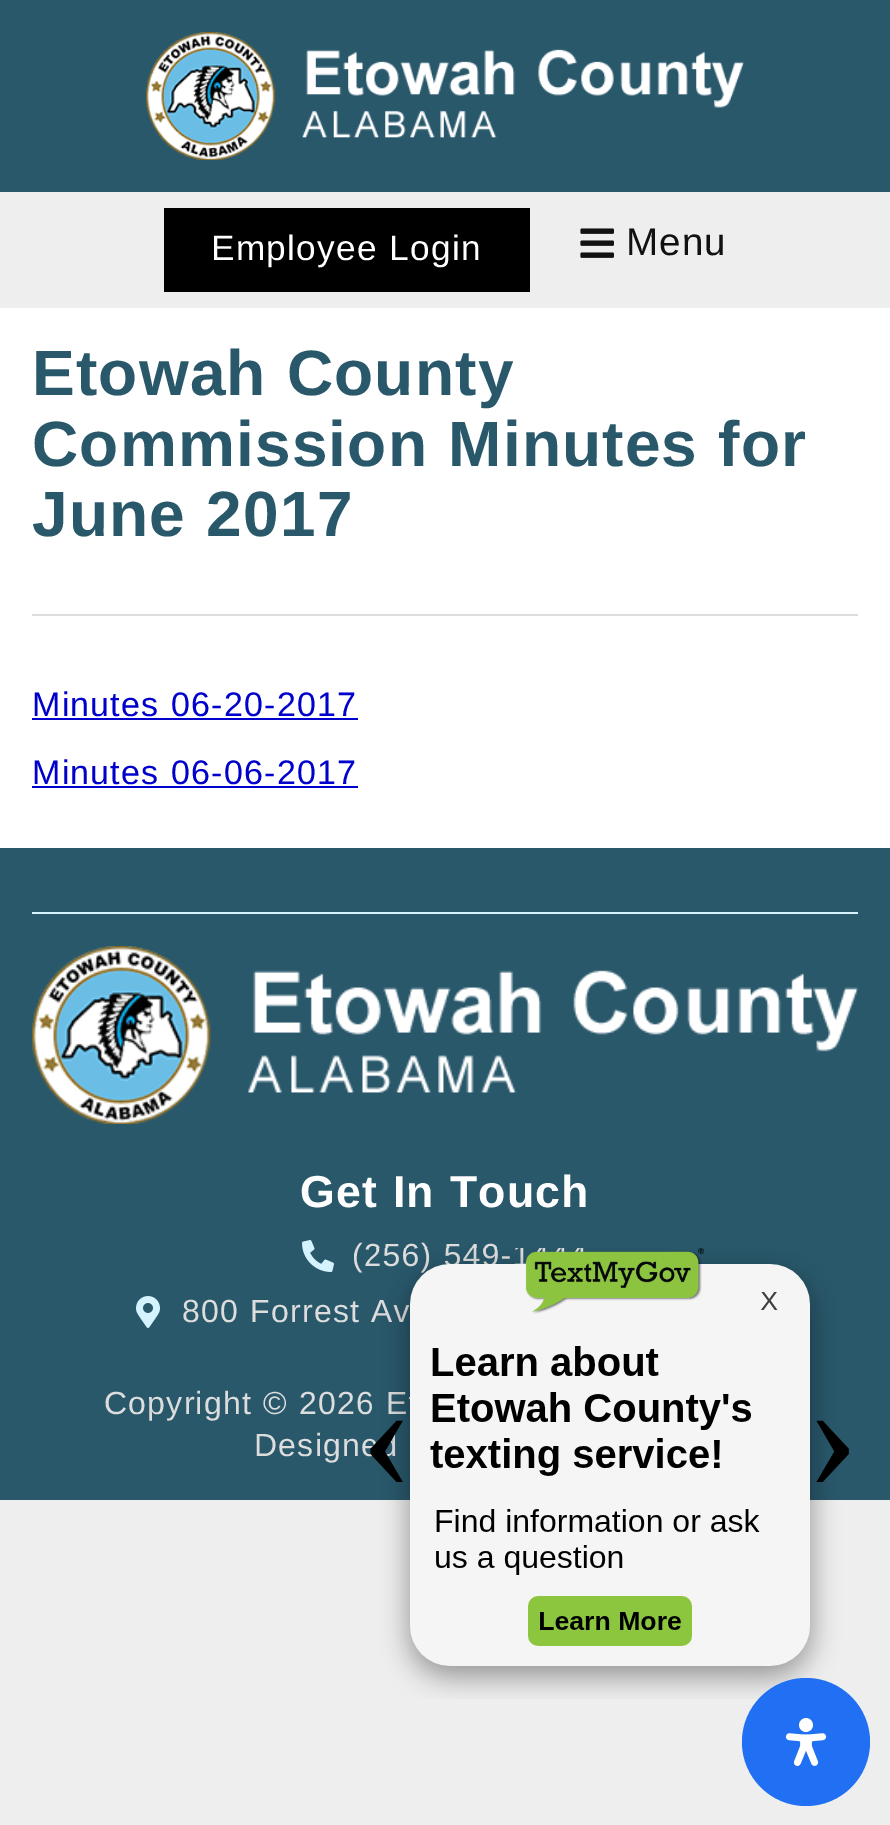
%!PS-Adobe-3.0
%%BoundingBox: 0 0 890 1825
%%LanguageLevel: 3
%%Pages: 1
%%EndComments
%%BeginProlog
/setink { 3 { 255 div 3 1 roll } repeat setrgbcolor } def
/usefont { [ exch dup neg 0 0 3 -1 roll 0 0 ] selectfont } def
/fillbox { setink rectfill } def
/disc { newpath 0 360 arc closepath } def
/drawimage { 5 dict begin { /h /w /y /x /name } { exch def } forall
  gsave x y translate w h scale
  w h 8 [w 0 0 h 0 0] name (r) file false 3 colorimage grestore end } def
%%EndProlog
%%BeginSetup
<< /PageSize [890 1825] >> setpagedevice
%%EndSetup
%%Page: 1 1
0 1825 translate 1 -1 scale
4 setmiterlimit
0 0 890 1825 238 238 238 fillbox
0 0 890 192 41 88 107 fillbox
(assets/img1.rgb) 146 32 598 128 drawimage
164 208 366 84 0 0 0 fillbox
/LiberationSans-Regular 35.25 usefont
255 255 255 setink
211 260 moveto 1 0 32 1.2 0 (Employee Login) awidthshow
(assets/img2.rgb) 580 228 34 30 drawimage
/LiberationSans-Regular 38.5 usefont
17 17 17 setink
626 255 moveto 1.2 0 (Menu) ashow
0 308 890 540 255 255 255 fillbox
/LiberationSans-Bold 64 usefont
41 88 107 setink
32 395 moveto 1 0 32 1.2 0 (Etowah County) awidthshow
32 466 moveto 1 0 32 1.2 0 (Commission Minutes for) awidthshow
32 536 moveto 1 0 32 1.2 0 (June 2017) awidthshow
32 614 826 2 221 221 221 fillbox
/LiberationSans-Regular 34 usefont
0 0 204 setink
32 716 moveto 1 0 32 1.2 0 (Minutes 06-20-2017) awidthshow
32 718 326 2 0 0 204 fillbox
32 784 moveto 1 0 32 1.2 0 (Minutes 06-06-2017) awidthshow
32 786 326 2 0 0 204 fillbox
0 848 890 652 41 88 107 fillbox
32 912 826 2 212 243 255 fillbox
(assets/img3.rgb) 32 946 826 178 drawimage
/LiberationSans-Bold 44.75 usefont
255 255 255 setink
300 1207 moveto 1 0 32 1.2 0 (Get In Touch) awidthshow
(assets/img4.rgb) 302 1240 32 32 drawimage
/LiberationSans-Regular 32 usefont
221 221 221 setink
352 1266 moveto 1 0 32 1.2 0 (\(256\) 549-) awidthshow
(assets/img5.rgb) 136 1296 24 32 drawimage
182 1322 moveto 1 0 32 1.2 0 (800 Forrest Av) awidthshow
104 1414 moveto 1 0 32 1.2 0 (Copyright © 2026 E) awidthshow
254 1456 moveto 1 0 32 1.2 0 (Designe) awidthshow
(assets/img6.rgb) 370 1248 479 451 drawimage
33 111 243 setink
806 1742 64 disc fill
(assets/img7.rgb) 785 1718 42 48 drawimage
showpage
%%EOF
